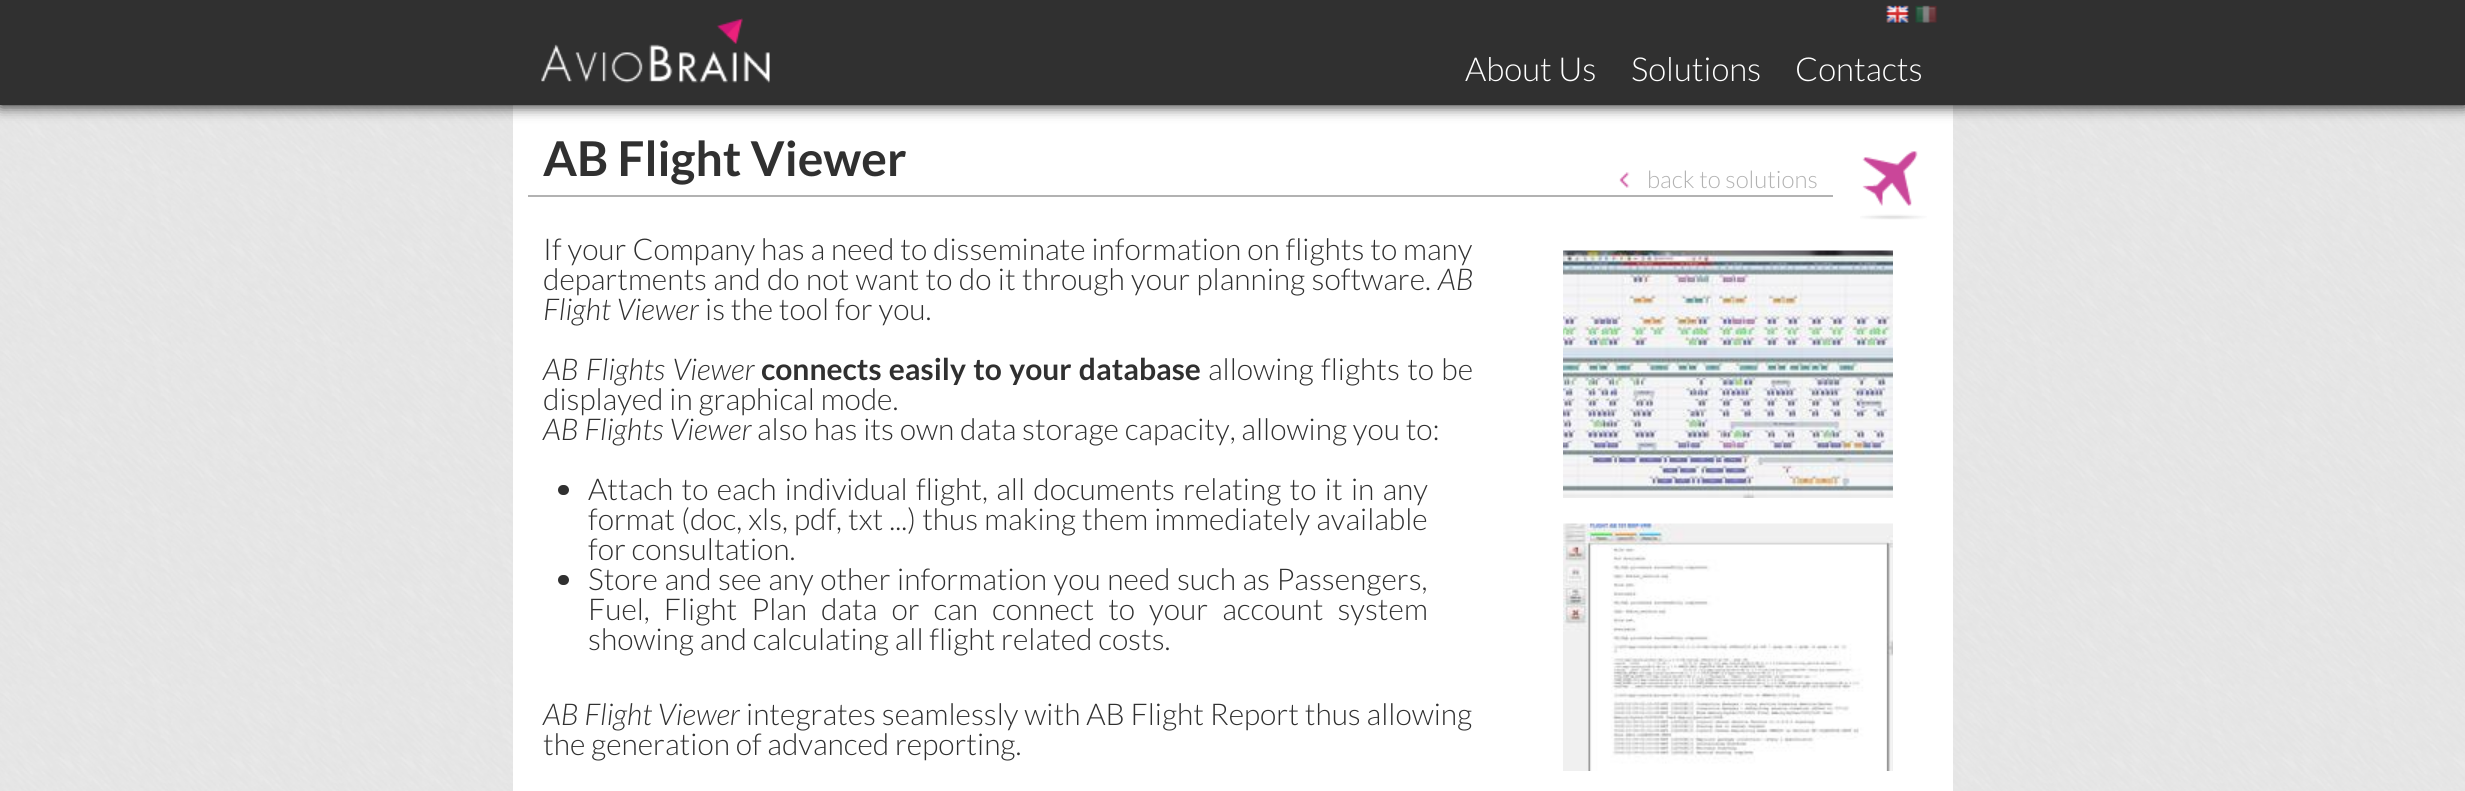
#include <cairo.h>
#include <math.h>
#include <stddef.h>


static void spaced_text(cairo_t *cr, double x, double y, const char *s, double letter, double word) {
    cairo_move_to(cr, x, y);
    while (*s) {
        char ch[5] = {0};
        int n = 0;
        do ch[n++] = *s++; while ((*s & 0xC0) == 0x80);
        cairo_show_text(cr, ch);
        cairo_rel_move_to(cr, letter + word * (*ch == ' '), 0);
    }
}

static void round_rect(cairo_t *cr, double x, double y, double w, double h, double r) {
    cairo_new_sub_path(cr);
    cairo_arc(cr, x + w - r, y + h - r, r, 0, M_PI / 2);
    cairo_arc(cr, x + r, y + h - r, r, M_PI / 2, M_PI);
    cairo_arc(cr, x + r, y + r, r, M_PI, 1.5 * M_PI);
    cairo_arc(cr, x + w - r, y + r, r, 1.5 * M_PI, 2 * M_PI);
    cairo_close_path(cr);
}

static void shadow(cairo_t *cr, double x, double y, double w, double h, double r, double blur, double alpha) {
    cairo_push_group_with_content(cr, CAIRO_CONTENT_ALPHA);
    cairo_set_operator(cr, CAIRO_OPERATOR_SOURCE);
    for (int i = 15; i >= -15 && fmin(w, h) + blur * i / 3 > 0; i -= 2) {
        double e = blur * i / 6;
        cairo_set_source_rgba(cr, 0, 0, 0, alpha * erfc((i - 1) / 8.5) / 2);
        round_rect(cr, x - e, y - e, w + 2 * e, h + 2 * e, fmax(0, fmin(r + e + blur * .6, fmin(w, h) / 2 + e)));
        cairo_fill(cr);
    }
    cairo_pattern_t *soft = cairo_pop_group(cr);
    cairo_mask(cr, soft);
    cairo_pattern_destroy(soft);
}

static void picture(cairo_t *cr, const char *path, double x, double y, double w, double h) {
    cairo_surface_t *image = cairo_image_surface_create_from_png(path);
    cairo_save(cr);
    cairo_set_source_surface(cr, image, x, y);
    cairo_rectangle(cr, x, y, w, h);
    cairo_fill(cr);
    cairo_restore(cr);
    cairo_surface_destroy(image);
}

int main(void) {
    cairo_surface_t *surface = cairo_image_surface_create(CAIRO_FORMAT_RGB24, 2465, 791);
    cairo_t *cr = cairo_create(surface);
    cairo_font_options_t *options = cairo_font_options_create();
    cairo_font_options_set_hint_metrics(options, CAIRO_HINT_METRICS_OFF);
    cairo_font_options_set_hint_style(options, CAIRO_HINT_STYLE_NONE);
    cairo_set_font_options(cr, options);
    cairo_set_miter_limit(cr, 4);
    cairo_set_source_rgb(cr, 1, 1, 1);
    cairo_paint(cr);
    picture(cr, "img1.png", 0, 105, 2465, 686);
    cairo_set_source_rgb(cr, 1, 1, 1);
    cairo_rectangle(cr, 513, 105, 1440, 686);
    cairo_fill(cr);
    cairo_set_source_rgb(cr, 0, 0, 0);
    shadow(cr, 0, 0, 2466, 105, 0, 7.5, 1);
    cairo_set_source_rgb(cr, 0.188, 0.188, 0.188);
    cairo_rectangle(cr, 0, 0, 2465, 105);
    cairo_fill(cr);
    picture(cr, "img2.png", 1886, 5, 23, 19);
    picture(cr, "img3.png", 1915, 5, 23, 18);
    picture(cr, "img4.png", 541, 18, 229, 65);
    cairo_select_font_face(cr, "Lato Light", CAIRO_FONT_SLANT_NORMAL, CAIRO_FONT_WEIGHT_NORMAL);
    cairo_set_font_size(cr, 33);
    cairo_set_source_rgb(cr, 1, 1, 1);
    cairo_move_to(cr, 1465, 81);
    cairo_show_text(cr, "About Us");
    cairo_move_to(cr, 1631, 81);
    cairo_show_text(cr, "Solutions");
    cairo_move_to(cr, 1795, 81);
    cairo_show_text(cr, "Contacts");
    cairo_set_source_rgb(cr, 0.698, 0.698, 0.698);
    cairo_rectangle(cr, 528, 195, 1305, 2);
    cairo_fill(cr);
    cairo_select_font_face(cr, "Lato", CAIRO_FONT_SLANT_NORMAL, CAIRO_FONT_WEIGHT_BOLD);
    cairo_set_font_size(cr, 48);
    cairo_set_source_rgb(cr, 0.188, 0.188, 0.188);
    cairo_move_to(cr, 543, 176);
    cairo_show_text(cr, "AB Flight Viewer");
    picture(cr, "img5.png", 1860, 151, 67, 69);
    picture(cr, "img6.png", 1619, 172, 11, 16);
    cairo_select_font_face(cr, "Lato Light", CAIRO_FONT_SLANT_NORMAL, CAIRO_FONT_WEIGHT_NORMAL);
    cairo_set_font_size(cr, 24);
    cairo_set_source_rgb(cr, 0.698, 0.698, 0.698);
    cairo_move_to(cr, 1647, 188);
    cairo_show_text(cr, "back to solutions");
    cairo_set_font_size(cr, 30);
    cairo_set_source_rgb(cr, 0.188, 0.188, 0.188);
    spaced_text(cr, 543, 260, "If your Company has a need to disseminate information on flights to many", 0, 0.1);
    spaced_text(cr, 543, 290, "departments and do not want to do it through your planning software.", 0, 0.6);
    cairo_select_font_face(cr, "Lato Light", CAIRO_FONT_SLANT_ITALIC, CAIRO_FONT_WEIGHT_NORMAL);
    cairo_move_to(cr, 1438, 290);
    cairo_show_text(cr, "AB");
    cairo_move_to(cr, 543, 320);
    cairo_show_text(cr, "Flight Viewer");
    cairo_select_font_face(cr, "Lato Light", CAIRO_FONT_SLANT_NORMAL, CAIRO_FONT_WEIGHT_NORMAL);
    cairo_move_to(cr, 705, 320);
    cairo_show_text(cr, "is the tool for you.");
    cairo_select_font_face(cr, "Lato Light", CAIRO_FONT_SLANT_ITALIC, CAIRO_FONT_WEIGHT_NORMAL);
    spaced_text(cr, 543, 380, "AB Flights Viewer", 0, 1.5);
    cairo_select_font_face(cr, "Lato", CAIRO_FONT_SLANT_NORMAL, CAIRO_FONT_WEIGHT_BOLD);
    spaced_text(cr, 761, 380, "connects easily to your database", 0, 1.5);
    cairo_select_font_face(cr, "Lato Light", CAIRO_FONT_SLANT_NORMAL, CAIRO_FONT_WEIGHT_NORMAL);
    spaced_text(cr, 1208, 380, "allowing flights to be", 0, 1.5);
    cairo_move_to(cr, 543, 410);
    cairo_show_text(cr, "displayed in graphical mode.");
    cairo_select_font_face(cr, "Lato Light", CAIRO_FONT_SLANT_ITALIC, CAIRO_FONT_WEIGHT_NORMAL);
    cairo_move_to(cr, 543, 440);
    cairo_show_text(cr, "AB Flights Viewer");
    cairo_select_font_face(cr, "Lato Light", CAIRO_FONT_SLANT_NORMAL, CAIRO_FONT_WEIGHT_NORMAL);
    cairo_move_to(cr, 757, 440);
    cairo_show_text(cr, "also has its own data storage capacity, allowing you to:");
    round_rect(cr, 558, 485, 11, 10, 5);
    cairo_fill(cr);
    spaced_text(cr, 588, 500, "Attach to each individual flight, all documents relating to it in any", 0, 2.5);
    spaced_text(cr, 588, 530, "format (doc, xls, pdf, txt ...) thus making them immediately available", 0, 0.25);
    cairo_move_to(cr, 588, 560);
    cairo_show_text(cr, "for consultation.");
    round_rect(cr, 558, 575, 11, 10, 5);
    cairo_fill(cr);
    spaced_text(cr, 588, 590, "Store and see any other information you need such as Passengers,", 0, 0.75);
    spaced_text(cr, 588, 620, "Fuel, Flight Plan data or can connect to your account system", 0, 8.25);
    cairo_move_to(cr, 588, 650);
    cairo_show_text(cr, "showing and calculating all flight related costs.");
    cairo_select_font_face(cr, "Lato Light", CAIRO_FONT_SLANT_ITALIC, CAIRO_FONT_WEIGHT_NORMAL);
    cairo_move_to(cr, 543, 725);
    cairo_show_text(cr, "AB Flight Viewer");
    cairo_select_font_face(cr, "Lato Light", CAIRO_FONT_SLANT_NORMAL, CAIRO_FONT_WEIGHT_NORMAL);
    cairo_move_to(cr, 746, 725);
    cairo_show_text(cr, "integrates seamlessly with AB Flight Report thus allowing");
    cairo_move_to(cr, 543, 755);
    cairo_show_text(cr, "the generation of advanced reporting.");
    picture(cr, "img7.png", 1563, 250, 330, 248);
    picture(cr, "img8.png", 1563, 523, 330, 248);
    cairo_surface_write_to_png(surface, "page.png");
    cairo_font_options_destroy(options);
    cairo_destroy(cr);
    cairo_surface_destroy(surface);
    return 0;
}
